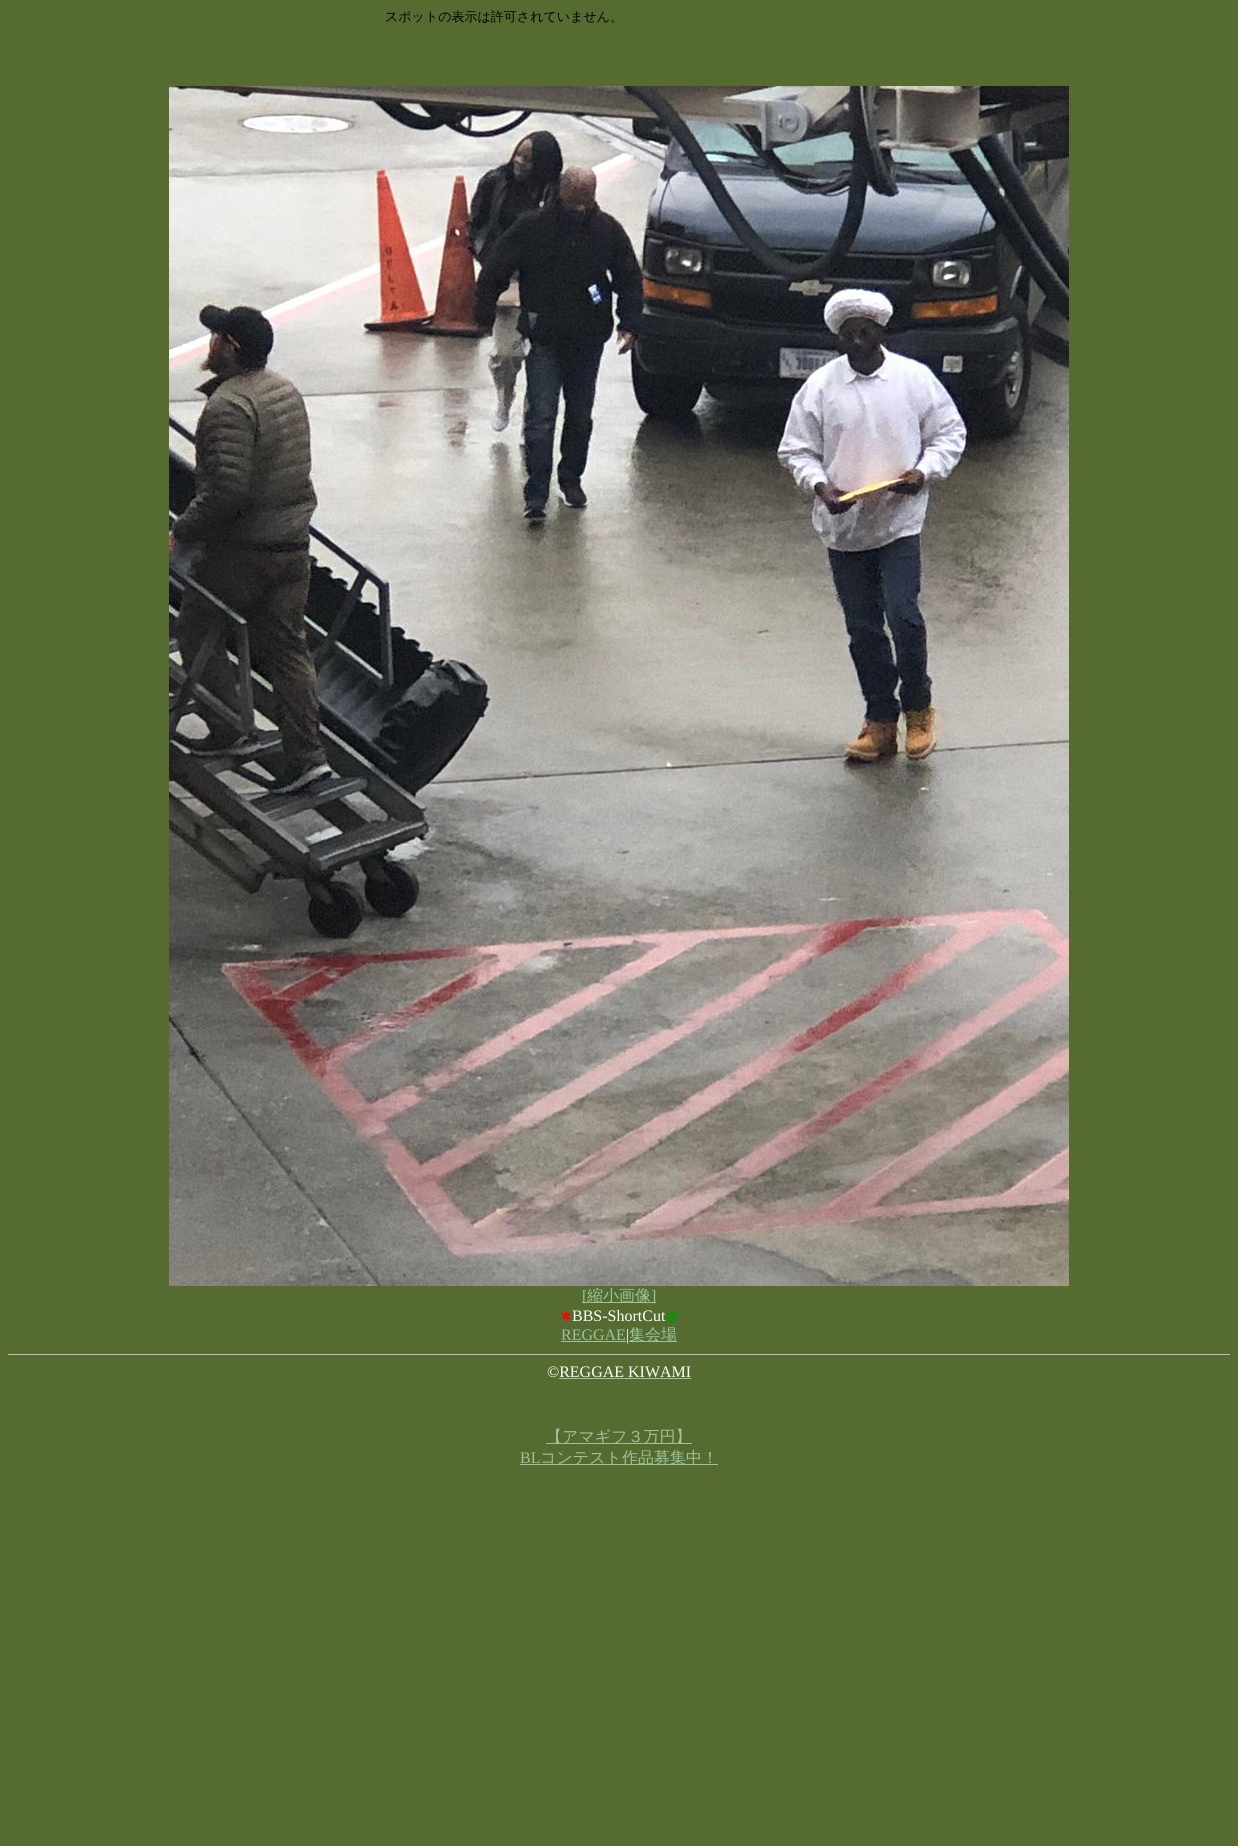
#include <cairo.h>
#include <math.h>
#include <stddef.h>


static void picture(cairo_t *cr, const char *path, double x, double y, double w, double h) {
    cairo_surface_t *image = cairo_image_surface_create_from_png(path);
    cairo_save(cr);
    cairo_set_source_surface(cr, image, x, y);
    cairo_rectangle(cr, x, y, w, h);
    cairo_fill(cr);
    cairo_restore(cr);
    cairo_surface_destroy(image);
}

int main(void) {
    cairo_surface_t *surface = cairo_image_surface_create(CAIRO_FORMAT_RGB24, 1238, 1846);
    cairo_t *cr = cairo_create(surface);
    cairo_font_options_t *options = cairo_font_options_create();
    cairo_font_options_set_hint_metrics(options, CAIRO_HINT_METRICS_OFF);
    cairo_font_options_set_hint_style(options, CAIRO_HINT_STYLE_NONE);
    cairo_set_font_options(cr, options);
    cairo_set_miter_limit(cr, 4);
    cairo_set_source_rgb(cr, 0.333, 0.42, 0.184);
    cairo_paint(cr);
    picture(cr, "img1.png", 386, 10, 229, 13);
    picture(cr, "img2.png", 169, 86, 900, 1200);
    cairo_set_source_rgb(cr, 0.612, 0.769, 0.612);
    cairo_rectangle(cr, 582, 1302, 74, 1);
    cairo_fill(cr);
    cairo_select_font_face(cr, "Liberation Serif", CAIRO_FONT_SLANT_NORMAL, CAIRO_FONT_WEIGHT_NORMAL);
    cairo_set_font_size(cr, 16);
    cairo_move_to(cr, 582, 1301);
    cairo_show_text(cr, "[");
    cairo_select_font_face(cr, "WenQuanYi Zen Hei Medium", CAIRO_FONT_SLANT_NORMAL, CAIRO_FONT_WEIGHT_NORMAL);
    cairo_move_to(cr, 587, 1301);
    cairo_show_text(cr, "縮小画像");
    cairo_select_font_face(cr, "Liberation Serif", CAIRO_FONT_SLANT_NORMAL, CAIRO_FONT_WEIGHT_NORMAL);
    cairo_move_to(cr, 651, 1301);
    cairo_show_text(cr, "]");
    picture(cr, "img3.png", 561, 1311, 10, 11);
    cairo_set_source_rgb(cr, 1, 1, 1);
    cairo_move_to(cr, 572, 1321);
    cairo_show_text(cr, "BBS-ShortCut");
    picture(cr, "img4.png", 666, 1311, 12, 12);
    cairo_set_source_rgb(cr, 0.612, 0.769, 0.612);
    cairo_move_to(cr, 561, 1340);
    cairo_show_text(cr, "REGGAE");
    cairo_rectangle(cr, 561, 1341, 65, 1);
    cairo_fill(cr);
    cairo_set_source_rgb(cr, 1, 1, 1);
    cairo_move_to(cr, 626, 1340);
    cairo_show_text(cr, "|");
    cairo_set_source_rgb(cr, 0.612, 0.769, 0.612);
    cairo_rectangle(cr, 629, 1341, 48, 1);
    cairo_fill(cr);
    cairo_select_font_face(cr, "WenQuanYi Zen Hei Medium", CAIRO_FONT_SLANT_NORMAL, CAIRO_FONT_WEIGHT_NORMAL);
    cairo_move_to(cr, 629, 1340);
    cairo_show_text(cr, "集会場");
    cairo_set_source_rgb(cr, 0.753, 0.753, 0.753);
    cairo_rectangle(cr, 8, 1354, 1222, 1);
    cairo_fill(cr);
    cairo_select_font_face(cr, "Liberation Serif", CAIRO_FONT_SLANT_NORMAL, CAIRO_FONT_WEIGHT_NORMAL);
    cairo_set_source_rgb(cr, 1, 1, 1);
    cairo_move_to(cr, 547, 1377);
    cairo_show_text(cr, "©REGGAE KIWAMI");
    cairo_set_source_rgb(cr, 0.612, 0.769, 0.612);
    cairo_rectangle(cr, 559, 1378, 132, 1);
    cairo_fill(cr);
    cairo_rectangle(cr, 546, 1443, 146, 1);
    cairo_fill(cr);
    cairo_select_font_face(cr, "WenQuanYi Zen Hei Medium", CAIRO_FONT_SLANT_NORMAL, CAIRO_FONT_WEIGHT_NORMAL);
    cairo_move_to(cr, 546, 1442);
    cairo_show_text(cr, "【アマギフ３万円】");
    cairo_select_font_face(cr, "Liberation Serif", CAIRO_FONT_SLANT_NORMAL, CAIRO_FONT_WEIGHT_NORMAL);
    cairo_move_to(cr, 520, 1463);
    cairo_show_text(cr, "BL");
    cairo_rectangle(cr, 520, 1464, 198, 1);
    cairo_fill(cr);
    cairo_select_font_face(cr, "WenQuanYi Zen Hei Medium", CAIRO_FONT_SLANT_NORMAL, CAIRO_FONT_WEIGHT_NORMAL);
    cairo_move_to(cr, 540, 1463);
    cairo_show_text(cr, "コンテスト作品募集中！");
    cairo_surface_write_to_png(surface, "page.png");
    cairo_font_options_destroy(options);
    cairo_destroy(cr);
    cairo_surface_destroy(surface);
    return 0;
}
